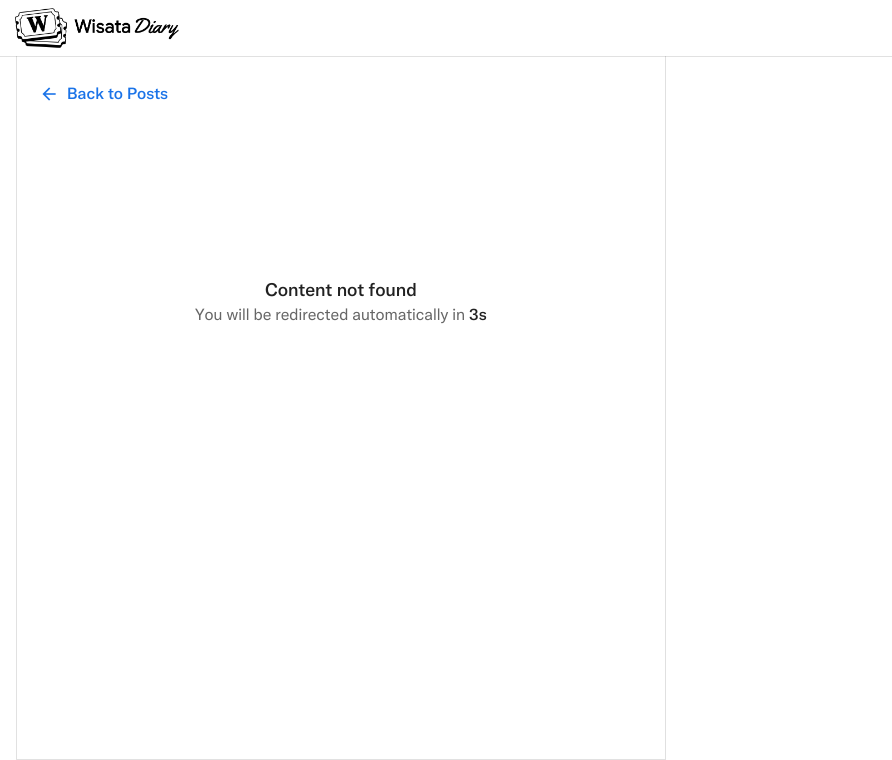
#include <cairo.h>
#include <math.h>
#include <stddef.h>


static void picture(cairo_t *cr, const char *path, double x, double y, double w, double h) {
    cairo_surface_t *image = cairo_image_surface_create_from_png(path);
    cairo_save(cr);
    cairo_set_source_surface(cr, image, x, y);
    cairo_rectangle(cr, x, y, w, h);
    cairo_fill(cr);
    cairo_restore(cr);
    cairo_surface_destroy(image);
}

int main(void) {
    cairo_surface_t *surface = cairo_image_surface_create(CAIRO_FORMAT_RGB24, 892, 760);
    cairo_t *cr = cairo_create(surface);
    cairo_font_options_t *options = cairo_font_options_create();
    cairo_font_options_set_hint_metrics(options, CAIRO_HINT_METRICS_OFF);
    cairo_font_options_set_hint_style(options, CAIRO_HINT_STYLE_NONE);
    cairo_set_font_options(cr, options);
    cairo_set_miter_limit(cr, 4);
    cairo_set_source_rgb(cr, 1, 1, 1);
    cairo_paint(cr);
    cairo_set_source_rgb(cr, 0.878, 0.878, 0.878);
    cairo_new_path(cr);
    cairo_move_to(cr, 666, 56);
    cairo_line_to(cr, 666, 760);
    cairo_line_to(cr, 665, 759);
    cairo_line_to(cr, 665, 56);
    cairo_close_path(cr);
    cairo_fill(cr);
    cairo_set_source_rgba(cr, 0, 0, 0, 0.12);
    cairo_new_path(cr);
    cairo_move_to(cr, 666, 760);
    cairo_line_to(cr, 16, 760);
    cairo_line_to(cr, 17, 759);
    cairo_line_to(cr, 665, 759);
    cairo_close_path(cr);
    cairo_fill(cr);
    cairo_new_path(cr);
    cairo_move_to(cr, 16, 760);
    cairo_line_to(cr, 16, 56);
    cairo_line_to(cr, 17, 56);
    cairo_line_to(cr, 17, 759);
    cairo_close_path(cr);
    cairo_fill(cr);
    cairo_rectangle(cr, 0, 56, 892, 1);
    cairo_fill(cr);
    picture(cr, "img1.png", 15, 8, 164, 40);
    picture(cr, "img2.png", 42, 87, 14, 14);
    cairo_select_font_face(cr, "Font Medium", CAIRO_FONT_SLANT_NORMAL, CAIRO_FONT_WEIGHT_NORMAL);
    cairo_set_font_size(cr, 16);
    cairo_set_source_rgb(cr, 0.102, 0.451, 0.91);
    cairo_move_to(cr, 67, 99);
    cairo_show_text(cr, "Back to Posts");
    cairo_set_font_size(cr, 18);
    cairo_set_source_rgb(cr, 0.129, 0.129, 0.129);
    cairo_move_to(cr, 265, 296);
    cairo_show_text(cr, "Content not found");
    cairo_select_font_face(cr, "Font", CAIRO_FONT_SLANT_NORMAL, CAIRO_FONT_WEIGHT_NORMAL);
    cairo_set_font_size(cr, 16);
    cairo_set_source_rgb(cr, 0.4, 0.4, 0.4);
    cairo_move_to(cr, 195, 320);
    cairo_show_text(cr, "You will be redirected automatically in");
    cairo_select_font_face(cr, "Font Medium", CAIRO_FONT_SLANT_NORMAL, CAIRO_FONT_WEIGHT_NORMAL);
    cairo_set_source_rgb(cr, 0.129, 0.129, 0.129);
    cairo_move_to(cr, 469, 320);
    cairo_show_text(cr, "3s");
    cairo_surface_write_to_png(surface, "page.png");
    cairo_font_options_destroy(options);
    cairo_destroy(cr);
    cairo_surface_destroy(surface);
    return 0;
}
